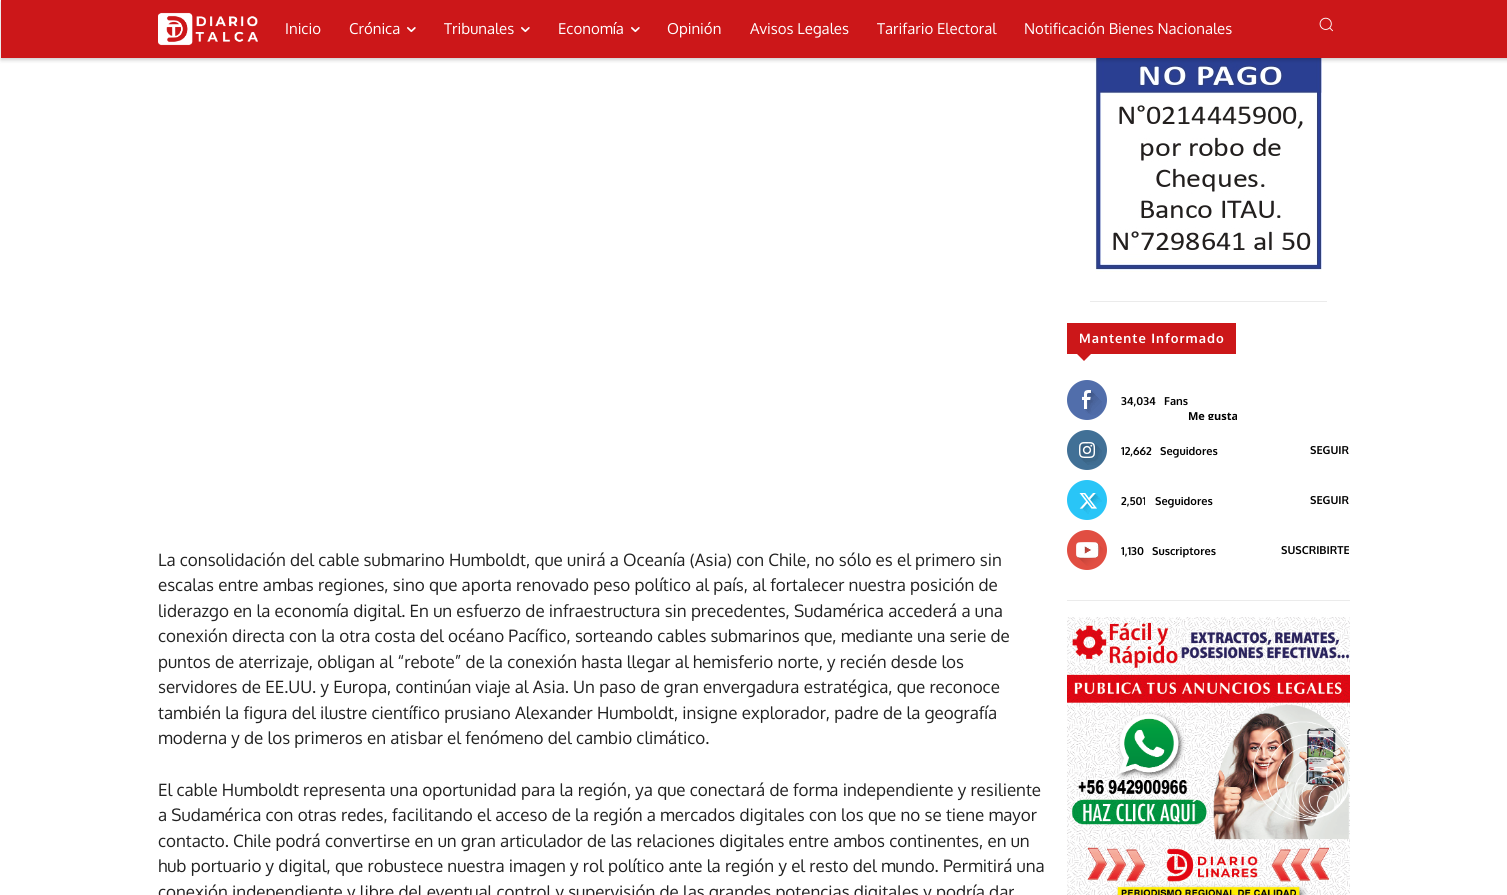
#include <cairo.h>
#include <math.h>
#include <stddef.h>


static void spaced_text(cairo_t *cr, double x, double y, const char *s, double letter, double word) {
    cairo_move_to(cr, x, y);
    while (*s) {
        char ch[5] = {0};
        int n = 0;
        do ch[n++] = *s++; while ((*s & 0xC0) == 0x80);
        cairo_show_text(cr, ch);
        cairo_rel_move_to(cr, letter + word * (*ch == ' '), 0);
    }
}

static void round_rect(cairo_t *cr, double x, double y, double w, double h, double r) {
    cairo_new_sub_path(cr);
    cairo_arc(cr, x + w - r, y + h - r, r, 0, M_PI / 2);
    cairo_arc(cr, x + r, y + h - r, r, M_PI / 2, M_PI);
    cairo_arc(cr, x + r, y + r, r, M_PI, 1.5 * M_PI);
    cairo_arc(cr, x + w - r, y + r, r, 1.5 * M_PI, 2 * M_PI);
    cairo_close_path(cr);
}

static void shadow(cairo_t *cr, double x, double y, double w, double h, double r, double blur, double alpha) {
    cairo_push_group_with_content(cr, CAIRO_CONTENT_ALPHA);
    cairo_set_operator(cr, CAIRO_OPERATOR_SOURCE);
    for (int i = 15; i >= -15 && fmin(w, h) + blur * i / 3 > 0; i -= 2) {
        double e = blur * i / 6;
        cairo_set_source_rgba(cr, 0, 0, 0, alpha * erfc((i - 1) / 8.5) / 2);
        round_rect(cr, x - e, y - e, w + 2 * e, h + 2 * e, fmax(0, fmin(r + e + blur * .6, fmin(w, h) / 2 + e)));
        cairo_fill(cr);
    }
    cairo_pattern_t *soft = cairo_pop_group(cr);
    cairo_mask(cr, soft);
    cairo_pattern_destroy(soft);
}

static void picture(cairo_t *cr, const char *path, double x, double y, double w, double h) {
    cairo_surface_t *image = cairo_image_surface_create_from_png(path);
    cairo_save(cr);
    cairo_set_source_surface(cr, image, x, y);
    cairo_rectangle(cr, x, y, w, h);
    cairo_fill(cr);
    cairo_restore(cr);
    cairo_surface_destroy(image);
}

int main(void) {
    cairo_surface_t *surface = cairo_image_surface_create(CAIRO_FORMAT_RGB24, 1507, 895);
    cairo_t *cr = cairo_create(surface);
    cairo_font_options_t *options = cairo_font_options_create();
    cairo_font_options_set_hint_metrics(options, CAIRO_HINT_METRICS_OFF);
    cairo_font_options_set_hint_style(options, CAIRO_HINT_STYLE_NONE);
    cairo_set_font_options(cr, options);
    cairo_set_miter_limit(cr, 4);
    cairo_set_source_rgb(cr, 1, 1, 1);
    cairo_paint(cr);
    cairo_set_source_rgb(cr, 0.8, 0.09, 0.098);
    cairo_rectangle(cr, 1, 0, 1506, 58);
    cairo_fill(cr);
    picture(cr, "img1.png", 158, 12, 100, 34);
    picture(cr, "img4.png", 1095, 58, 227, 214);
    cairo_save(cr);
    cairo_set_fill_rule(cr, CAIRO_FILL_RULE_EVEN_ODD);
    cairo_new_path(cr);
    cairo_move_to(cr, 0, 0);
    cairo_line_to(cr, 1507, 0);
    cairo_line_to(cr, 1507, 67);
    cairo_line_to(cr, 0, 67);
    cairo_close_path(cr);
    cairo_move_to(cr, 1, 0);
    cairo_line_to(cr, 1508, 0);
    cairo_line_to(cr, 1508, 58);
    cairo_line_to(cr, 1, 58);
    cairo_close_path(cr);
    cairo_clip(cr);
    cairo_set_source_rgb(cr, 0, 0, 0);
    shadow(cr, 1, 2, 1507, 58, 0, 2, 0.2);
    cairo_restore(cr);
    cairo_select_font_face(cr, "Oxygen", CAIRO_FONT_SLANT_NORMAL, CAIRO_FONT_WEIGHT_NORMAL);
    cairo_set_font_size(cr, 15);
    cairo_set_source_rgb(cr, 1, 1, 1);
    cairo_move_to(cr, 285, 34);
    cairo_show_text(cr, "Inicio");
    cairo_move_to(cr, 349, 34);
    cairo_show_text(cr, "Crónica");
    picture(cr, "img2.png", 407, 27, 9, 6);
    cairo_move_to(cr, 444, 34);
    cairo_show_text(cr, "Tribunales");
    picture(cr, "img2.png", 521, 27, 9, 6);
    cairo_move_to(cr, 558, 34);
    cairo_show_text(cr, "Economía");
    picture(cr, "img2.png", 631, 27, 9, 6);
    cairo_move_to(cr, 667, 34);
    cairo_show_text(cr, "Opinión");
    cairo_move_to(cr, 750, 34);
    cairo_show_text(cr, "Avisos Legales");
    cairo_move_to(cr, 877, 34);
    cairo_show_text(cr, "Tarifario Electoral");
    cairo_move_to(cr, 1024, 34);
    cairo_show_text(cr, "Notificación Bienes Nacionales");
    picture(cr, "img3.png", 1319, 17, 14, 15);
    cairo_set_source_rgb(cr, 0.918, 0.918, 0.918);
    cairo_rectangle(cr, 1090, 301, 237, 1);
    cairo_fill(cr);
    cairo_set_source_rgb(cr, 0.8, 0.09, 0.098);
    cairo_rectangle(cr, 1067, 323, 169, 31);
    cairo_fill(cr);
    cairo_select_font_face(cr, "Oxygen", CAIRO_FONT_SLANT_NORMAL, CAIRO_FONT_WEIGHT_BOLD);
    cairo_set_font_size(cr, 13);
    cairo_set_source_rgb(cr, 1, 1, 1);
    spaced_text(cr, 1079, 343, "Mantente Informado", 1, 0);
    cairo_set_source_rgb(cr, 0.8, 0.09, 0.098);
    cairo_new_path(cr);
    cairo_move_to(cr, 1077, 354);
    cairo_line_to(cr, 1091, 354);
    cairo_line_to(cr, 1084, 361);
    cairo_close_path(cr);
    cairo_fill(cr);
    cairo_set_source_rgb(cr, 0.318, 0.431, 0.671);
    cairo_arc(cr, 1087, 400, 20, 0, 2 * M_PI);
    cairo_fill(cr);
    picture(cr, "img5.png", 1082, 390, 20, 25);
    cairo_set_font_size(cr, 11);
    cairo_set_source_rgb(cr, 0, 0, 0);
    cairo_move_to(cr, 1121, 405);
    cairo_show_text(cr, "34,034");
    cairo_move_to(cr, 1164, 405);
    cairo_show_text(cr, "Fans");
    cairo_save(cr);
    cairo_rectangle(cr, 1067, 380, 283, 40);
    cairo_clip(cr);
    cairo_select_font_face(cr, "Open Sans", CAIRO_FONT_SLANT_NORMAL, CAIRO_FONT_WEIGHT_BOLD);
    cairo_move_to(cr, 1188, 420);
    cairo_show_text(cr, "Me gusta");
    cairo_restore(cr);
    cairo_set_source_rgb(cr, 0.255, 0.439, 0.588);
    cairo_new_path(cr);
    cairo_arc(cr, 1087, 450, 20, 0, 2 * M_PI);
    cairo_fill(cr);
    picture(cr, "img6.png", 1079, 442, 23, 23);
    cairo_set_source_rgb(cr, 0, 0, 0);
    cairo_move_to(cr, 1121, 455);
    cairo_show_text(cr, "12,662");
    cairo_move_to(cr, 1160, 455);
    cairo_show_text(cr, "Seguidores");
    cairo_move_to(cr, 1310, 454);
    cairo_show_text(cr, "SEGUIR");
    cairo_set_source_rgb(cr, 0.161, 0.773, 0.965);
    cairo_new_path(cr);
    cairo_arc(cr, 1087, 500, 20, 0, 2 * M_PI);
    cairo_fill(cr);
    picture(cr, "img7.png", 1079, 493, 23, 21);
    cairo_set_source_rgb(cr, 0, 0, 0);
    cairo_move_to(cr, 1121, 505);
    cairo_show_text(cr, "2,501");
    cairo_move_to(cr, 1155, 505);
    cairo_show_text(cr, "Seguidores");
    cairo_move_to(cr, 1310, 504);
    cairo_show_text(cr, "SEGUIR");
    cairo_set_source_rgb(cr, 0.882, 0.306, 0.259);
    cairo_new_path(cr);
    cairo_arc(cr, 1087, 550, 20, 0, 2 * M_PI);
    cairo_fill(cr);
    picture(cr, "img8.png", 1076, 542, 27, 24);
    cairo_set_source_rgb(cr, 0, 0, 0);
    cairo_move_to(cr, 1121, 555);
    cairo_show_text(cr, "1,130");
    cairo_move_to(cr, 1152, 555);
    cairo_show_text(cr, "Suscriptores");
    cairo_move_to(cr, 1281, 554);
    cairo_show_text(cr, "SUSCRIBIRTE");
    cairo_set_source_rgb(cr, 0.918, 0.918, 0.918);
    cairo_rectangle(cr, 1067, 600, 283, 1);
    cairo_fill(cr);
    picture(cr, "img9.png", 1067, 617, 283, 278);
    cairo_select_font_face(cr, "Oxygen", CAIRO_FONT_SLANT_NORMAL, CAIRO_FONT_WEIGHT_NORMAL);
    cairo_set_font_size(cr, 17);
    cairo_set_source_rgb(cr, 0.133, 0.133, 0.133);
    cairo_move_to(cr, 158, 566);
    cairo_show_text(cr, "La consolidación del cable submarino Humboldt, que unirá a Oceanía (Asia) con Chile, no sólo es el primero sin");
    cairo_move_to(cr, 158, 591);
    cairo_show_text(cr, "escalas entre ambas regiones, sino que aporta renovado peso político al país, al fortalecer nuestra posición de");
    cairo_move_to(cr, 158, 617);
    cairo_show_text(cr, "liderazgo en la economía digital. En un esfuerzo de infraestructura sin precedentes, Sudamérica accederá a una");
    cairo_move_to(cr, 158, 642);
    cairo_show_text(cr, "conexión directa con la otra costa del océano Pacífico, sorteando cables submarinos que, mediante una serie de");
    cairo_move_to(cr, 158, 668);
    cairo_show_text(cr, "puntos de aterrizaje, obligan al “rebote” de la conexión hasta llegar al hemisferio norte, y recién desde los");
    cairo_move_to(cr, 158, 693);
    cairo_show_text(cr, "servidores de EE.UU. y Europa, continúan viaje al Asia. Un paso de gran envergadura estratégica, que reconoce");
    cairo_move_to(cr, 158, 719);
    cairo_show_text(cr, "también la figura del ilustre científico prusiano Alexander Humboldt, insigne explorador, padre de la geografía");
    cairo_move_to(cr, 158, 744);
    cairo_show_text(cr, "moderna y de los primeros en atisbar el fenómeno del cambio climático.");
    cairo_move_to(cr, 158, 796);
    cairo_show_text(cr, "El cable Humboldt representa una oportunidad para la región, ya que conectará de forma independiente y resiliente");
    cairo_move_to(cr, 158, 821);
    cairo_show_text(cr, "a Sudamérica con otras redes, facilitando el acceso de la región a mercados digitales con los que no se tiene mayor");
    cairo_move_to(cr, 158, 847);
    cairo_show_text(cr, "contacto. Chile podrá convertirse en un gran articulador de las relaciones digitales entre ambos continentes, en un");
    cairo_move_to(cr, 158, 872);
    cairo_show_text(cr, "hub portuario y digital, que robustece nuestra imagen y rol político ante la región y el resto del mundo. Permitirá una");
    cairo_move_to(cr, 158, 898);
    cairo_show_text(cr, "conexión independiente y libre del eventual control y supervisión de las grandes potencias digitales y podría dar");
    cairo_surface_write_to_png(surface, "page.png");
    cairo_font_options_destroy(options);
    cairo_destroy(cr);
    cairo_surface_destroy(surface);
    return 0;
}
